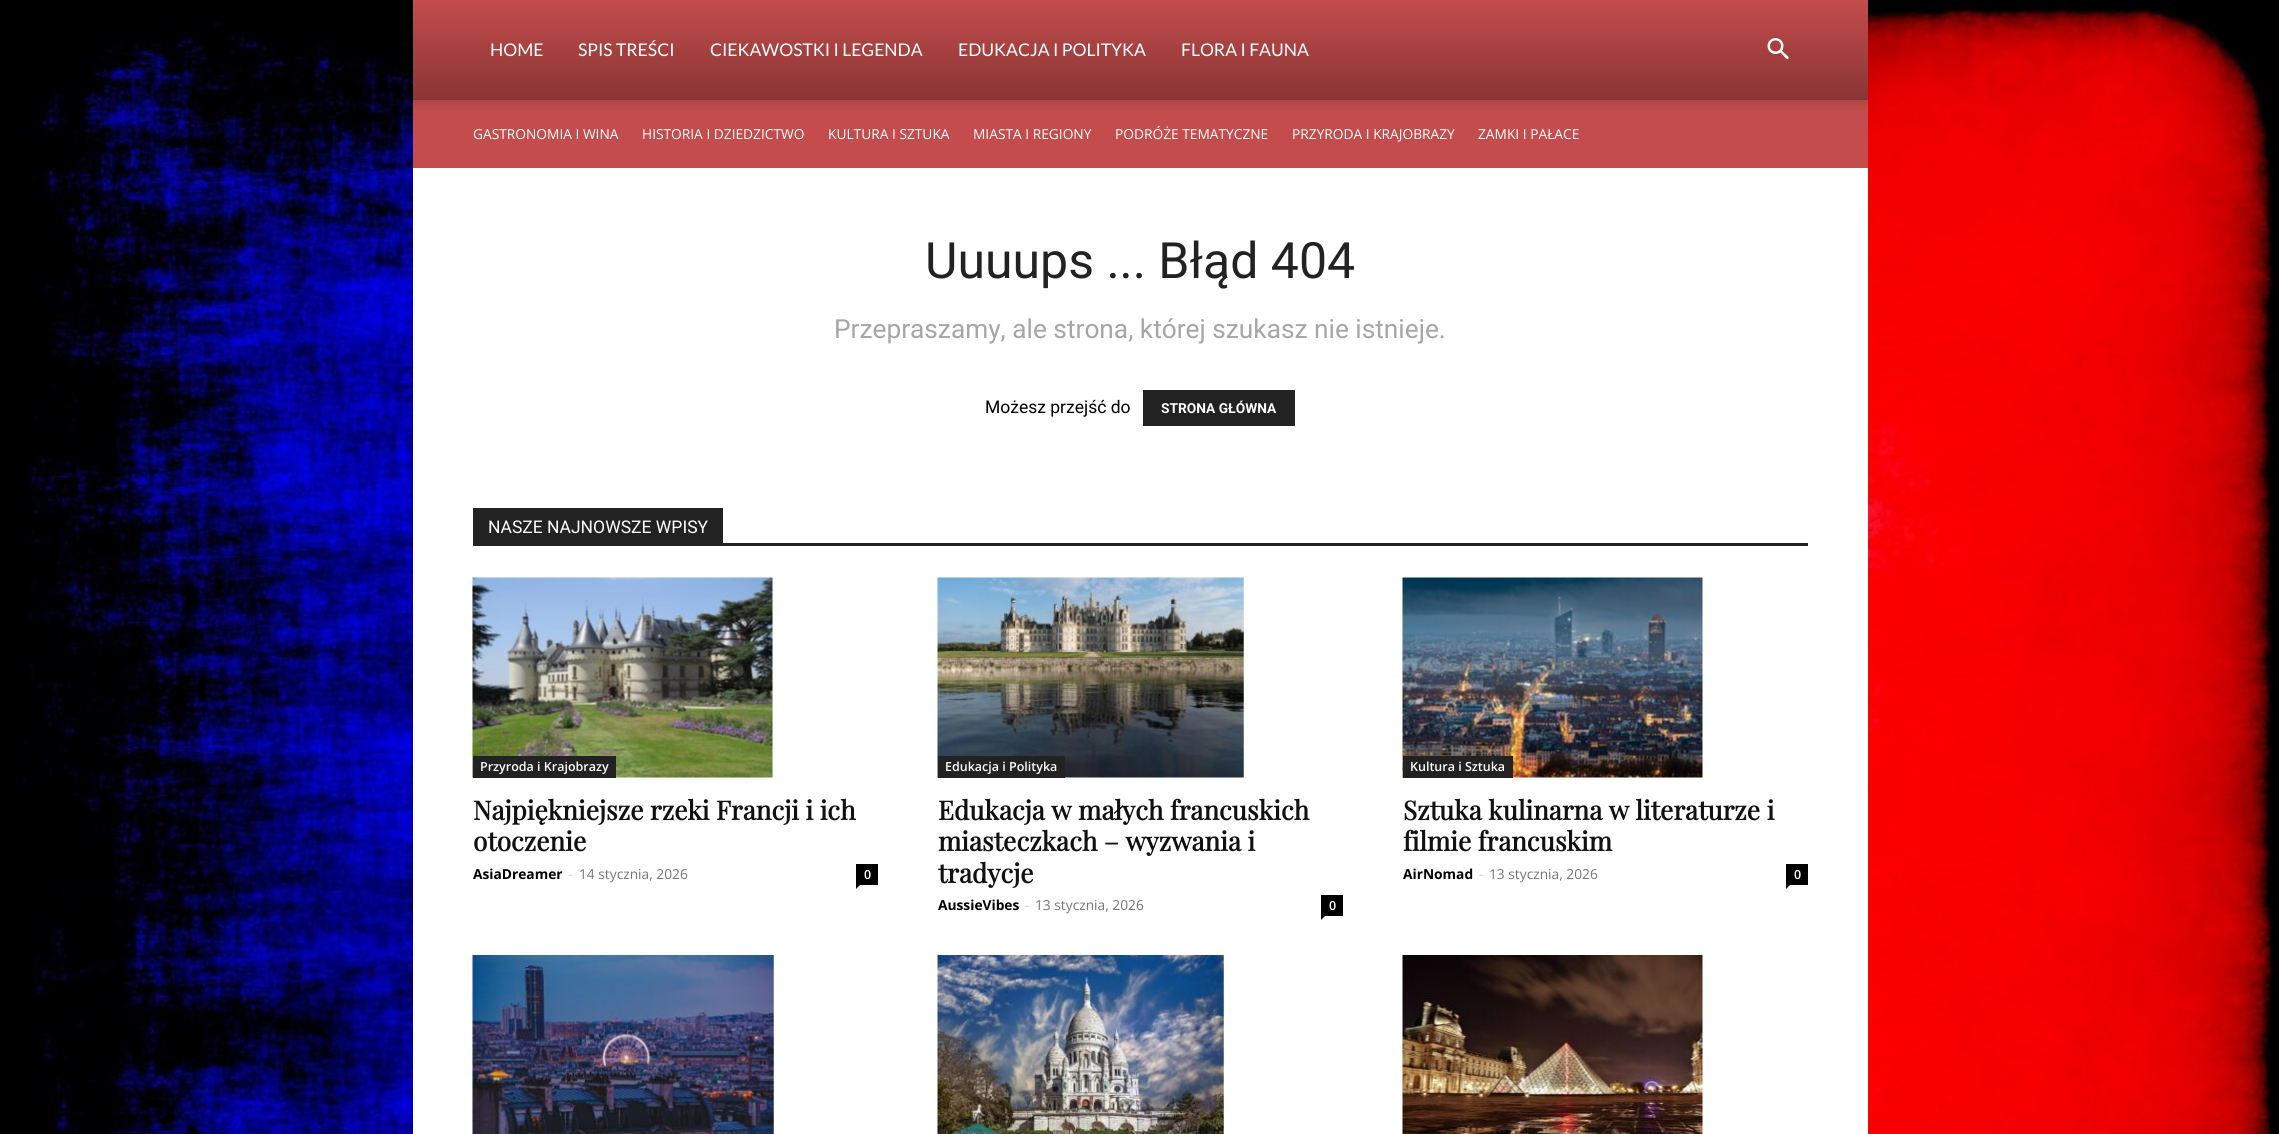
#include <cairo.h>
#include <math.h>
#include <stddef.h>


static void picture(cairo_t *cr, const char *path, double x, double y, double w, double h) {
    cairo_surface_t *image = cairo_image_surface_create_from_png(path);
    cairo_save(cr);
    cairo_set_source_surface(cr, image, x, y);
    cairo_rectangle(cr, x, y, w, h);
    cairo_fill(cr);
    cairo_restore(cr);
    cairo_surface_destroy(image);
}

int main(void) {
    cairo_surface_t *surface = cairo_image_surface_create(CAIRO_FORMAT_RGB24, 2279, 1134);
    cairo_t *cr = cairo_create(surface);
    cairo_font_options_t *options = cairo_font_options_create();
    cairo_font_options_set_hint_metrics(options, CAIRO_HINT_METRICS_OFF);
    cairo_font_options_set_hint_style(options, CAIRO_HINT_STYLE_NONE);
    cairo_set_font_options(cr, options);
    cairo_set_miter_limit(cr, 4);
    cairo_pattern_t *gradient;
    cairo_set_source_rgb(cr, 1, 1, 1);
    cairo_paint(cr);
    picture(cr, "img1.png", 0, 0, 2279, 1134);
    gradient = cairo_pattern_create_linear(1140, 0, 1140, 100);
    cairo_pattern_add_color_stop_rgba(gradient, 0, 0.769, 0.298, 0.298, 1);
    cairo_pattern_add_color_stop_rgba(gradient, 1, 0.537, 0.208, 0.208, 1);
    cairo_set_source(cr, gradient);
    cairo_pattern_destroy(gradient);
    cairo_rectangle(cr, 413, 0, 1455, 100);
    cairo_fill(cr);
    cairo_select_font_face(cr, "Lato", CAIRO_FONT_SLANT_NORMAL, CAIRO_FONT_WEIGHT_NORMAL);
    cairo_set_font_size(cr, 17.5);
    cairo_set_source_rgb(cr, 1, 1, 1);
    cairo_move_to(cr, 490, 56);
    cairo_show_text(cr, "HOME");
    cairo_move_to(cr, 578, 56);
    cairo_show_text(cr, "SPIS TREŚCI");
    cairo_move_to(cr, 710, 56);
    cairo_show_text(cr, "CIEKAWOSTKI I LEGENDA");
    cairo_move_to(cr, 958, 56);
    cairo_show_text(cr, "EDUKACJA I POLITYKA");
    cairo_move_to(cr, 1181, 56);
    cairo_show_text(cr, "FLORA I FAUNA");
    picture(cr, "img2.png", 1767, 38, 22, 22);
    cairo_set_source_rgb(cr, 0.769, 0.298, 0.298);
    cairo_rectangle(cr, 413, 100, 1455, 68);
    cairo_fill(cr);
    picture(cr, "img3.png", 413, 100, 1455, 11);
    cairo_select_font_face(cr, "Open Sans", CAIRO_FONT_SLANT_NORMAL, CAIRO_FONT_WEIGHT_NORMAL);
    cairo_set_font_size(cr, 13.75);
    cairo_set_source_rgb(cr, 1, 1, 1);
    cairo_move_to(cr, 473, 139);
    cairo_show_text(cr, "GASTRONOMIA I WINA");
    cairo_move_to(cr, 642, 139);
    cairo_show_text(cr, "HISTORIA I DZIEDZICTWO");
    cairo_move_to(cr, 828, 139);
    cairo_show_text(cr, "KULTURA I SZTUKA");
    cairo_move_to(cr, 973, 139);
    cairo_show_text(cr, "MIASTA I REGIONY");
    cairo_move_to(cr, 1115, 139);
    cairo_show_text(cr, "PODRÓŻE TEMATYCZNE");
    cairo_move_to(cr, 1292, 139);
    cairo_show_text(cr, "PRZYRODA I KRAJOBRAZY");
    cairo_move_to(cr, 1478, 139);
    cairo_show_text(cr, "ZAMKI I PAŁACE");
    cairo_rectangle(cr, 413, 168, 1455, 966);
    cairo_fill(cr);
    cairo_select_font_face(cr, "Roboto", CAIRO_FONT_SLANT_NORMAL, CAIRO_FONT_WEIGHT_NORMAL);
    cairo_set_font_size(cr, 50);
    cairo_set_source_rgb(cr, 0.133, 0.133, 0.133);
    cairo_move_to(cr, 925, 278);
    cairo_show_text(cr, "Uuuups ... Błąd 404");
    cairo_set_font_size(cr, 26.25);
    cairo_set_source_rgb(cr, 0.651, 0.651, 0.651);
    cairo_move_to(cr, 834, 338);
    cairo_show_text(cr, "Przepraszamy, ale strona, której szukasz nie istnieje.");
    cairo_set_font_size(cr, 17.5);
    cairo_set_source_rgb(cr, 0, 0, 0);
    cairo_move_to(cr, 985, 413);
    cairo_show_text(cr, "Możesz przejść do");
    cairo_set_source_rgb(cr, 0.133, 0.133, 0.133);
    cairo_rectangle(cr, 1143, 390, 152, 36);
    cairo_fill(cr);
    cairo_select_font_face(cr, "Roboto", CAIRO_FONT_SLANT_NORMAL, CAIRO_FONT_WEIGHT_BOLD);
    cairo_set_font_size(cr, 13.75);
    cairo_set_source_rgb(cr, 1, 1, 1);
    cairo_move_to(cr, 1161, 413);
    cairo_show_text(cr, "STRONA GŁÓWNA");
    cairo_set_source_rgb(cr, 0.133, 0.133, 0.133);
    cairo_rectangle(cr, 473, 543, 1335, 3);
    cairo_fill(cr);
    cairo_rectangle(cr, 473, 508, 250, 35);
    cairo_fill(cr);
    cairo_select_font_face(cr, "Roboto", CAIRO_FONT_SLANT_NORMAL, CAIRO_FONT_WEIGHT_NORMAL);
    cairo_set_font_size(cr, 17.5);
    cairo_set_source_rgb(cr, 1, 1, 1);
    cairo_move_to(cr, 488, 533);
    cairo_show_text(cr, "NASZE NAJNOWSZE WPISY");
    picture(cr, "img4.png", 472, 577, 301, 201);
    cairo_set_source_rgb(cr, 0.133, 0.133, 0.133);
    cairo_rectangle(cr, 473, 756, 143, 22);
    cairo_fill(cr);
    cairo_select_font_face(cr, "Open Sans SemiBold", CAIRO_FONT_SLANT_NORMAL, CAIRO_FONT_WEIGHT_NORMAL);
    cairo_set_font_size(cr, 12.5);
    cairo_set_source_rgb(cr, 1, 1, 1);
    cairo_move_to(cr, 480, 771);
    cairo_show_text(cr, "Przyroda i Krajobrazy");
    cairo_select_font_face(cr, "Playfair Display", CAIRO_FONT_SLANT_NORMAL, CAIRO_FONT_WEIGHT_BOLD);
    cairo_set_font_size(cr, 26.25);
    cairo_set_source_rgb(cr, 0.067, 0.067, 0.067);
    cairo_move_to(cr, 473, 820);
    cairo_show_text(cr, "Najpiękniejsze rzeki Francji i ich");
    cairo_move_to(cr, 473, 851);
    cairo_show_text(cr, "otoczenie");
    cairo_select_font_face(cr, "Open Sans", CAIRO_FONT_SLANT_NORMAL, CAIRO_FONT_WEIGHT_BOLD);
    cairo_set_font_size(cr, 13.75);
    cairo_set_source_rgb(cr, 0, 0, 0);
    cairo_move_to(cr, 473, 879);
    cairo_show_text(cr, "AsiaDreamer");
    cairo_select_font_face(cr, "Open Sans", CAIRO_FONT_SLANT_NORMAL, CAIRO_FONT_WEIGHT_NORMAL);
    cairo_set_source_rgb(cr, 0.8, 0.8, 0.8);
    cairo_move_to(cr, 568, 879);
    cairo_show_text(cr, "-");
    cairo_set_source_rgb(cr, 0.463, 0.463, 0.463);
    cairo_move_to(cr, 579, 879);
    cairo_show_text(cr, "14 stycznia, 2026");
    cairo_set_source_rgb(cr, 0, 0, 0);
    cairo_rectangle(cr, 856, 864, 22, 21);
    cairo_fill(cr);
    cairo_select_font_face(cr, "Open Sans SemiBold", CAIRO_FONT_SLANT_NORMAL, CAIRO_FONT_WEIGHT_NORMAL);
    cairo_set_font_size(cr, 12.5);
    cairo_set_source_rgb(cr, 1, 1, 1);
    cairo_move_to(cr, 864, 879);
    cairo_show_text(cr, "0");
    cairo_set_source_rgb(cr, 0, 0, 0);
    cairo_new_path(cr);
    cairo_move_to(cr, 856, 885);
    cairo_line_to(cr, 860, 885);
    cairo_line_to(cr, 856, 889);
    cairo_close_path(cr);
    cairo_fill(cr);
    picture(cr, "img5.png", 937, 577, 307, 201);
    cairo_set_source_rgb(cr, 0.133, 0.133, 0.133);
    cairo_rectangle(cr, 938, 756, 127, 22);
    cairo_fill(cr);
    cairo_set_source_rgb(cr, 1, 1, 1);
    cairo_move_to(cr, 945, 771);
    cairo_show_text(cr, "Edukacja i Polityka");
    cairo_select_font_face(cr, "Playfair Display", CAIRO_FONT_SLANT_NORMAL, CAIRO_FONT_WEIGHT_BOLD);
    cairo_set_font_size(cr, 26.25);
    cairo_set_source_rgb(cr, 0.067, 0.067, 0.067);
    cairo_move_to(cr, 938, 820);
    cairo_show_text(cr, "Edukacja w małych francuskich");
    cairo_move_to(cr, 938, 851);
    cairo_show_text(cr, "miasteczkach – wyzwania i");
    cairo_move_to(cr, 938, 883);
    cairo_show_text(cr, "tradycje");
    cairo_select_font_face(cr, "Open Sans", CAIRO_FONT_SLANT_NORMAL, CAIRO_FONT_WEIGHT_BOLD);
    cairo_set_font_size(cr, 13.75);
    cairo_set_source_rgb(cr, 0, 0, 0);
    cairo_move_to(cr, 938, 910);
    cairo_show_text(cr, "AussieVibes");
    cairo_select_font_face(cr, "Open Sans", CAIRO_FONT_SLANT_NORMAL, CAIRO_FONT_WEIGHT_NORMAL);
    cairo_set_source_rgb(cr, 0.8, 0.8, 0.8);
    cairo_move_to(cr, 1025, 910);
    cairo_show_text(cr, "-");
    cairo_set_source_rgb(cr, 0.463, 0.463, 0.463);
    cairo_move_to(cr, 1035, 910);
    cairo_show_text(cr, "13 stycznia, 2026");
    cairo_set_source_rgb(cr, 0, 0, 0);
    cairo_rectangle(cr, 1321, 895, 22, 21);
    cairo_fill(cr);
    cairo_select_font_face(cr, "Open Sans SemiBold", CAIRO_FONT_SLANT_NORMAL, CAIRO_FONT_WEIGHT_NORMAL);
    cairo_set_font_size(cr, 12.5);
    cairo_set_source_rgb(cr, 1, 1, 1);
    cairo_move_to(cr, 1329, 910);
    cairo_show_text(cr, "0");
    cairo_set_source_rgb(cr, 0, 0, 0);
    cairo_new_path(cr);
    cairo_move_to(cr, 1321, 916);
    cairo_line_to(cr, 1325, 916);
    cairo_line_to(cr, 1321, 920);
    cairo_close_path(cr);
    cairo_fill(cr);
    picture(cr, "img6.png", 1402, 577, 301, 201);
    cairo_set_source_rgb(cr, 0.133, 0.133, 0.133);
    cairo_rectangle(cr, 1403, 756, 110, 22);
    cairo_fill(cr);
    cairo_set_source_rgb(cr, 1, 1, 1);
    cairo_move_to(cr, 1410, 771);
    cairo_show_text(cr, "Kultura i Sztuka");
    cairo_select_font_face(cr, "Playfair Display", CAIRO_FONT_SLANT_NORMAL, CAIRO_FONT_WEIGHT_BOLD);
    cairo_set_font_size(cr, 26.25);
    cairo_set_source_rgb(cr, 0.067, 0.067, 0.067);
    cairo_move_to(cr, 1403, 820);
    cairo_show_text(cr, "Sztuka kulinarna w literaturze i");
    cairo_move_to(cr, 1403, 851);
    cairo_show_text(cr, "filmie francuskim");
    cairo_select_font_face(cr, "Open Sans", CAIRO_FONT_SLANT_NORMAL, CAIRO_FONT_WEIGHT_BOLD);
    cairo_set_font_size(cr, 13.75);
    cairo_set_source_rgb(cr, 0, 0, 0);
    cairo_move_to(cr, 1403, 879);
    cairo_show_text(cr, "AirNomad");
    cairo_select_font_face(cr, "Open Sans", CAIRO_FONT_SLANT_NORMAL, CAIRO_FONT_WEIGHT_NORMAL);
    cairo_set_source_rgb(cr, 0.8, 0.8, 0.8);
    cairo_move_to(cr, 1479, 879);
    cairo_show_text(cr, "-");
    cairo_set_source_rgb(cr, 0.463, 0.463, 0.463);
    cairo_move_to(cr, 1489, 879);
    cairo_show_text(cr, "13 stycznia, 2026");
    cairo_set_source_rgb(cr, 0, 0, 0);
    cairo_rectangle(cr, 1786, 864, 22, 21);
    cairo_fill(cr);
    cairo_select_font_face(cr, "Open Sans SemiBold", CAIRO_FONT_SLANT_NORMAL, CAIRO_FONT_WEIGHT_NORMAL);
    cairo_set_font_size(cr, 12.5);
    cairo_set_source_rgb(cr, 1, 1, 1);
    cairo_move_to(cr, 1794, 879);
    cairo_show_text(cr, "0");
    cairo_set_source_rgb(cr, 0, 0, 0);
    cairo_new_path(cr);
    cairo_move_to(cr, 1786, 885);
    cairo_line_to(cr, 1790, 885);
    cairo_line_to(cr, 1786, 889);
    cairo_close_path(cr);
    cairo_fill(cr);
    picture(cr, "img7.png", 472, 955, 302, 179);
    picture(cr, "img8.png", 937, 955, 287, 179);
    picture(cr, "img9.png", 1402, 955, 301, 179);
    cairo_surface_write_to_png(surface, "page.png");
    cairo_font_options_destroy(options);
    cairo_destroy(cr);
    cairo_surface_destroy(surface);
    return 0;
}
